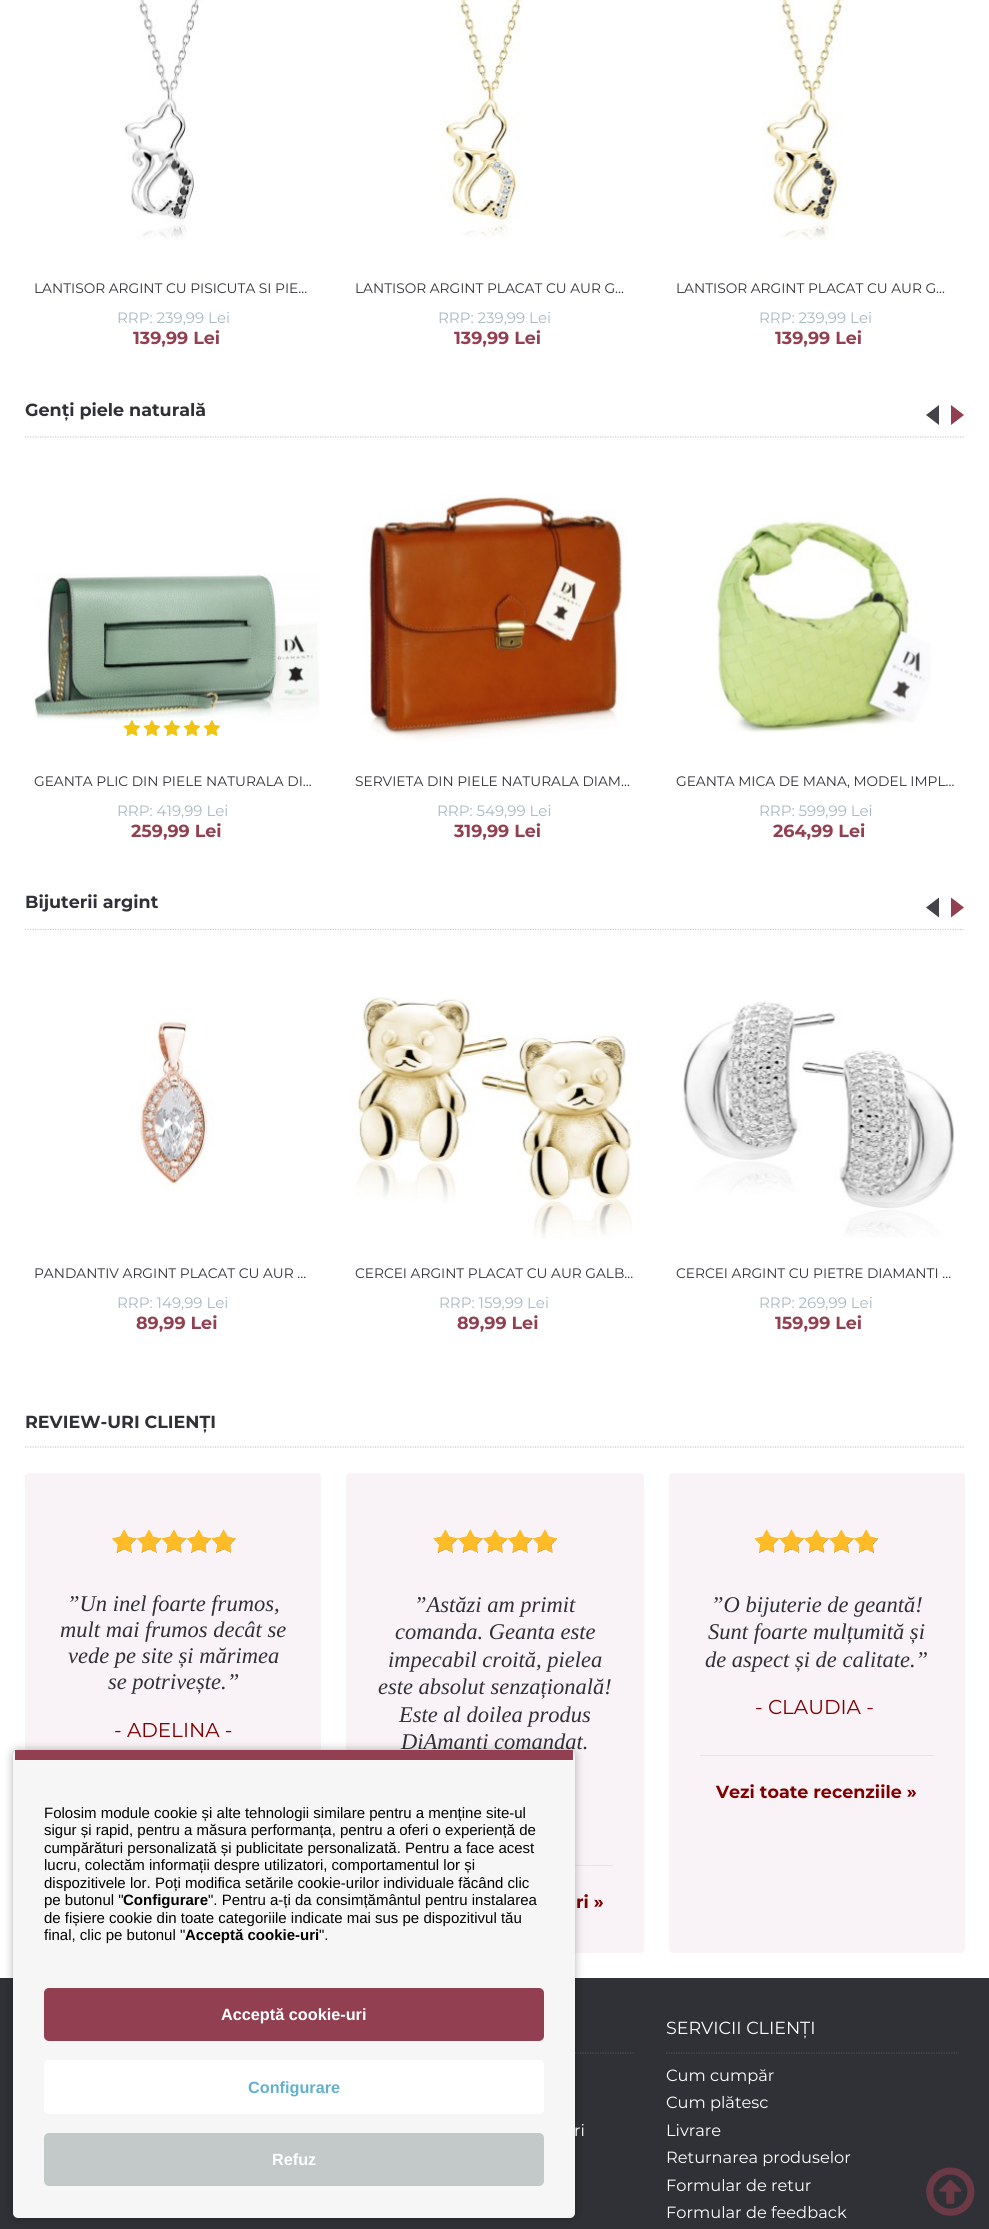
#include <cairo.h>
#include <math.h>
#include <stddef.h>


static void round_rect(cairo_t *cr, double x, double y, double w, double h, double r) {
    cairo_new_sub_path(cr);
    cairo_arc(cr, x + w - r, y + h - r, r, 0, M_PI / 2);
    cairo_arc(cr, x + r, y + h - r, r, M_PI / 2, M_PI);
    cairo_arc(cr, x + r, y + r, r, M_PI, 1.5 * M_PI);
    cairo_arc(cr, x + w - r, y + r, r, 1.5 * M_PI, 2 * M_PI);
    cairo_close_path(cr);
}

static void shadow(cairo_t *cr, double x, double y, double w, double h, double r, double blur, double alpha) {
    cairo_push_group_with_content(cr, CAIRO_CONTENT_ALPHA);
    cairo_set_operator(cr, CAIRO_OPERATOR_SOURCE);
    for (int i = 15; i >= -15 && fmin(w, h) + blur * i / 3 > 0; i -= 2) {
        double e = blur * i / 6;
        cairo_set_source_rgba(cr, 0, 0, 0, alpha * erfc((i - 1) / 8.5) / 2);
        round_rect(cr, x - e, y - e, w + 2 * e, h + 2 * e, fmax(0, fmin(r + e + blur * .6, fmin(w, h) / 2 + e)));
        cairo_fill(cr);
    }
    cairo_pattern_t *soft = cairo_pop_group(cr);
    cairo_mask(cr, soft);
    cairo_pattern_destroy(soft);
}

static void picture(cairo_t *cr, const char *path, double x, double y, double w, double h) {
    cairo_surface_t *image = cairo_image_surface_create_from_png(path);
    cairo_save(cr);
    cairo_set_source_surface(cr, image, x, y);
    cairo_rectangle(cr, x, y, w, h);
    cairo_fill(cr);
    cairo_restore(cr);
    cairo_surface_destroy(image);
}

int main(void) {
    cairo_surface_t *surface = cairo_image_surface_create(CAIRO_FORMAT_RGB24, 989, 2229);
    cairo_t *cr = cairo_create(surface);
    cairo_font_options_t *options = cairo_font_options_create();
    cairo_font_options_set_hint_metrics(options, CAIRO_HINT_METRICS_OFF);
    cairo_font_options_set_hint_style(options, CAIRO_HINT_STYLE_NONE);
    cairo_set_font_options(cr, options);
    cairo_set_miter_limit(cr, 4);
    cairo_set_source_rgb(cr, 1, 1, 1);
    cairo_paint(cr);
    picture(cr, "img1.png", 121, 0, 80, 240);
    cairo_select_font_face(cr, "Montserrat Thin", CAIRO_FONT_SLANT_NORMAL, CAIRO_FONT_WEIGHT_NORMAL);
    cairo_set_font_size(cr, 13.75);
    cairo_set_source_rgb(cr, 0.188, 0.192, 0.212);
    cairo_move_to(cr, 34, 293);
    cairo_show_text(cr, "LANTISOR ARGINT CU PISICUTA SI PIE…");
    cairo_set_font_size(cr, 15);
    cairo_set_source_rgb(cr, 0.663, 0.722, 0.753);
    cairo_move_to(cr, 117, 323);
    cairo_show_text(cr, "RRP: 239,99 Lei");
    cairo_select_font_face(cr, "Montserrat", CAIRO_FONT_SLANT_NORMAL, CAIRO_FONT_WEIGHT_BOLD);
    cairo_set_font_size(cr, 17.5);
    cairo_set_source_rgb(cr, 0.573, 0.251, 0.318);
    cairo_move_to(cr, 133, 344);
    cairo_show_text(cr, "139,99 Lei");
    picture(cr, "img2.png", 441, 0, 82, 238);
    cairo_select_font_face(cr, "Montserrat Thin", CAIRO_FONT_SLANT_NORMAL, CAIRO_FONT_WEIGHT_NORMAL);
    cairo_set_font_size(cr, 13.75);
    cairo_set_source_rgb(cr, 0.188, 0.192, 0.212);
    cairo_move_to(cr, 355, 293);
    cairo_show_text(cr, "LANTISOR ARGINT PLACAT CU AUR G…");
    cairo_set_font_size(cr, 15);
    cairo_set_source_rgb(cr, 0.663, 0.722, 0.753);
    cairo_move_to(cr, 438, 323);
    cairo_show_text(cr, "RRP: 239,99 Lei");
    cairo_select_font_face(cr, "Montserrat", CAIRO_FONT_SLANT_NORMAL, CAIRO_FONT_WEIGHT_BOLD);
    cairo_set_font_size(cr, 17.5);
    cairo_set_source_rgb(cr, 0.573, 0.251, 0.318);
    cairo_move_to(cr, 454, 344);
    cairo_show_text(cr, "139,99 Lei");
    picture(cr, "img3.png", 762, 0, 82, 240);
    cairo_select_font_face(cr, "Montserrat Thin", CAIRO_FONT_SLANT_NORMAL, CAIRO_FONT_WEIGHT_NORMAL);
    cairo_set_font_size(cr, 13.75);
    cairo_set_source_rgb(cr, 0.188, 0.192, 0.212);
    cairo_move_to(cr, 676, 293);
    cairo_show_text(cr, "LANTISOR ARGINT PLACAT CU AUR G…");
    cairo_set_font_size(cr, 15);
    cairo_set_source_rgb(cr, 0.663, 0.722, 0.753);
    cairo_move_to(cr, 759, 323);
    cairo_show_text(cr, "RRP: 239,99 Lei");
    cairo_select_font_face(cr, "Montserrat", CAIRO_FONT_SLANT_NORMAL, CAIRO_FONT_WEIGHT_BOLD);
    cairo_set_font_size(cr, 17.5);
    cairo_set_source_rgb(cr, 0.573, 0.251, 0.318);
    cairo_move_to(cr, 775, 344);
    cairo_show_text(cr, "139,99 Lei");
    cairo_new_path(cr);
    cairo_move_to(cr, 25, 437);
    cairo_line_to(cr, 965, 437);
    cairo_set_source_rgb(cr, 0.8, 0.8, 0.8);
    cairo_set_line_width(cr, 1.2);
    cairo_set_dash(cr, (double[]){1.25, 1.25}, 2, 0);
    cairo_stroke(cr);
    cairo_set_source_rgb(cr, 0.188, 0.192, 0.212);
    cairo_move_to(cr, 25, 416);
    cairo_show_text(cr, "Genți piele naturală");
    cairo_set_source_rgb(cr, 0.267, 0.263, 0.286);
    cairo_new_path(cr);
    cairo_move_to(cr, 939, 425);
    cairo_line_to(cr, 939, 405);
    cairo_line_to(cr, 926, 415);
    cairo_close_path(cr);
    cairo_fill(cr);
    cairo_set_source_rgb(cr, 0.573, 0.251, 0.318);
    cairo_new_path(cr);
    cairo_move_to(cr, 951, 405);
    cairo_line_to(cr, 951, 425);
    cairo_line_to(cr, 964, 415);
    cairo_close_path(cr);
    cairo_fill(cr);
    picture(cr, "img4.png", 34, 573, 286, 148);
    picture(cr, "img5.png", 123, 720, 17, 16);
    picture(cr, "img6.png", 123, 720, 17, 16);
    picture(cr, "img7.png", 143, 720, 17, 16);
    picture(cr, "img8.png", 143, 720, 17, 16);
    picture(cr, "img9.png", 163, 720, 17, 16);
    picture(cr, "img10.png", 163, 720, 17, 16);
    picture(cr, "img11.png", 183, 720, 17, 16);
    picture(cr, "img12.png", 183, 720, 17, 16);
    picture(cr, "img13.png", 203, 720, 17, 16);
    picture(cr, "img14.png", 203, 720, 17, 16);
    cairo_select_font_face(cr, "Montserrat Thin", CAIRO_FONT_SLANT_NORMAL, CAIRO_FONT_WEIGHT_NORMAL);
    cairo_set_font_size(cr, 13.75);
    cairo_set_source_rgb(cr, 0.188, 0.192, 0.212);
    cairo_move_to(cr, 34, 786);
    cairo_show_text(cr, "GEANTA PLIC DIN PIELE NATURALA DI…");
    cairo_set_font_size(cr, 15);
    cairo_set_source_rgb(cr, 0.663, 0.722, 0.753);
    cairo_move_to(cr, 117, 816);
    cairo_show_text(cr, "RRP: 419,99 Lei");
    cairo_select_font_face(cr, "Montserrat", CAIRO_FONT_SLANT_NORMAL, CAIRO_FONT_WEIGHT_BOLD);
    cairo_set_font_size(cr, 17.5);
    cairo_set_source_rgb(cr, 0.573, 0.251, 0.318);
    cairo_move_to(cr, 131, 837);
    cairo_show_text(cr, "259,99 Lei");
    picture(cr, "img15.png", 362, 494, 266, 248);
    cairo_select_font_face(cr, "Montserrat Thin", CAIRO_FONT_SLANT_NORMAL, CAIRO_FONT_WEIGHT_NORMAL);
    cairo_set_font_size(cr, 13.75);
    cairo_set_source_rgb(cr, 0.188, 0.192, 0.212);
    cairo_move_to(cr, 355, 786);
    cairo_show_text(cr, "SERVIETA DIN PIELE NATURALA DIAM…");
    cairo_set_font_size(cr, 15);
    cairo_set_source_rgb(cr, 0.663, 0.722, 0.753);
    cairo_move_to(cr, 437, 816);
    cairo_show_text(cr, "RRP: 549,99 Lei");
    cairo_select_font_face(cr, "Montserrat", CAIRO_FONT_SLANT_NORMAL, CAIRO_FONT_WEIGHT_BOLD);
    cairo_set_font_size(cr, 17.5);
    cairo_set_source_rgb(cr, 0.573, 0.251, 0.318);
    cairo_move_to(cr, 454, 837);
    cairo_show_text(cr, "319,99 Lei");
    picture(cr, "img16.png", 714, 517, 217, 216);
    cairo_select_font_face(cr, "Montserrat Thin", CAIRO_FONT_SLANT_NORMAL, CAIRO_FONT_WEIGHT_NORMAL);
    cairo_set_font_size(cr, 13.75);
    cairo_set_source_rgb(cr, 0.188, 0.192, 0.212);
    cairo_move_to(cr, 676, 786);
    cairo_show_text(cr, "GEANTA MICA DE MANA, MODEL IMPL…");
    cairo_set_font_size(cr, 15);
    cairo_set_source_rgb(cr, 0.663, 0.722, 0.753);
    cairo_move_to(cr, 759, 816);
    cairo_show_text(cr, "RRP: 599,99 Lei");
    cairo_select_font_face(cr, "Montserrat", CAIRO_FONT_SLANT_NORMAL, CAIRO_FONT_WEIGHT_BOLD);
    cairo_set_font_size(cr, 17.5);
    cairo_set_source_rgb(cr, 0.573, 0.251, 0.318);
    cairo_move_to(cr, 773, 837);
    cairo_show_text(cr, "264,99 Lei");
    cairo_new_path(cr);
    cairo_move_to(cr, 25, 929.5);
    cairo_line_to(cr, 965, 929.5);
    cairo_set_source_rgb(cr, 0.8, 0.8, 0.8);
    cairo_stroke(cr);
    cairo_set_source_rgb(cr, 0.188, 0.192, 0.212);
    cairo_move_to(cr, 25, 908);
    cairo_show_text(cr, "Bijuterii argint");
    cairo_set_source_rgb(cr, 0.267, 0.263, 0.286);
    cairo_new_path(cr);
    cairo_move_to(cr, 939, 917.5);
    cairo_line_to(cr, 939, 897.5);
    cairo_line_to(cr, 926, 907.5);
    cairo_close_path(cr);
    cairo_fill(cr);
    cairo_set_source_rgb(cr, 0.573, 0.251, 0.318);
    cairo_new_path(cr);
    cairo_move_to(cr, 951, 897.5);
    cairo_line_to(cr, 951, 917.5);
    cairo_line_to(cr, 964, 907.5);
    cairo_close_path(cr);
    cairo_fill(cr);
    picture(cr, "img17.png", 136, 1018, 78, 174);
    cairo_select_font_face(cr, "Montserrat Thin", CAIRO_FONT_SLANT_NORMAL, CAIRO_FONT_WEIGHT_NORMAL);
    cairo_set_font_size(cr, 13.75);
    cairo_set_source_rgb(cr, 0.188, 0.192, 0.212);
    cairo_move_to(cr, 34, 1278);
    cairo_show_text(cr, "PANDANTIV ARGINT PLACAT CU AUR …");
    cairo_set_font_size(cr, 15);
    cairo_set_source_rgb(cr, 0.663, 0.722, 0.753);
    cairo_move_to(cr, 117, 1308);
    cairo_show_text(cr, "RRP: 149,99 Lei");
    cairo_select_font_face(cr, "Montserrat", CAIRO_FONT_SLANT_NORMAL, CAIRO_FONT_WEIGHT_BOLD);
    cairo_set_font_size(cr, 17.5);
    cairo_set_source_rgb(cr, 0.573, 0.251, 0.318);
    cairo_move_to(cr, 136, 1329);
    cairo_show_text(cr, "89,99 Lei");
    picture(cr, "img18.png", 350, 996, 282, 243);
    cairo_select_font_face(cr, "Montserrat Thin", CAIRO_FONT_SLANT_NORMAL, CAIRO_FONT_WEIGHT_NORMAL);
    cairo_set_font_size(cr, 13.75);
    cairo_set_source_rgb(cr, 0.188, 0.192, 0.212);
    cairo_move_to(cr, 355, 1278);
    cairo_show_text(cr, "CERCEI ARGINT PLACAT CU AUR GALB…");
    cairo_set_font_size(cr, 15);
    cairo_set_source_rgb(cr, 0.663, 0.722, 0.753);
    cairo_move_to(cr, 439, 1308);
    cairo_show_text(cr, "RRP: 159,99 Lei");
    cairo_select_font_face(cr, "Montserrat", CAIRO_FONT_SLANT_NORMAL, CAIRO_FONT_WEIGHT_BOLD);
    cairo_set_font_size(cr, 17.5);
    cairo_set_source_rgb(cr, 0.573, 0.251, 0.318);
    cairo_move_to(cr, 457, 1329);
    cairo_show_text(cr, "89,99 Lei");
    picture(cr, "img19.png", 683, 1001, 272, 237);
    cairo_select_font_face(cr, "Montserrat Thin", CAIRO_FONT_SLANT_NORMAL, CAIRO_FONT_WEIGHT_NORMAL);
    cairo_set_font_size(cr, 13.75);
    cairo_set_source_rgb(cr, 0.188, 0.192, 0.212);
    cairo_move_to(cr, 676, 1278);
    cairo_show_text(cr, "CERCEI ARGINT CU PIETRE DIAMANTI …");
    cairo_set_font_size(cr, 15);
    cairo_set_source_rgb(cr, 0.663, 0.722, 0.753);
    cairo_move_to(cr, 759, 1308);
    cairo_show_text(cr, "RRP: 269,99 Lei");
    cairo_select_font_face(cr, "Montserrat", CAIRO_FONT_SLANT_NORMAL, CAIRO_FONT_WEIGHT_BOLD);
    cairo_set_font_size(cr, 17.5);
    cairo_set_source_rgb(cr, 0.573, 0.251, 0.318);
    cairo_move_to(cr, 775, 1329);
    cairo_show_text(cr, "159,99 Lei");
    cairo_new_path(cr);
    cairo_move_to(cr, 25, 1447);
    cairo_line_to(cr, 965, 1447);
    cairo_set_source_rgb(cr, 0.8, 0.8, 0.8);
    cairo_stroke(cr);
    cairo_set_source_rgb(cr, 0.188, 0.192, 0.212);
    cairo_move_to(cr, 25, 1428);
    cairo_show_text(cr, "REVIEW-URI CLIENȚI");
    cairo_set_source_rgb(cr, 0.973, 0.949, 0.965);
    round_rect(cr, 25, 1473, 296, 480, 4);
    cairo_fill(cr);
    picture(cr, "img20.png", 111, 1529, 126, 25);
    cairo_select_font_face(cr, "Liberation Serif", CAIRO_FONT_SLANT_ITALIC, CAIRO_FONT_WEIGHT_NORMAL);
    cairo_set_font_size(cr, 22.5);
    cairo_set_source_rgb(cr, 0.188, 0.192, 0.212);
    cairo_move_to(cr, 67, 1611);
    cairo_show_text(cr, "”Un inel foarte frumos,");
    cairo_move_to(cr, 60, 1637);
    cairo_show_text(cr, "mult mai frumos decât se");
    cairo_move_to(cr, 68, 1663);
    cairo_show_text(cr, "vede pe site și mărimea");
    cairo_move_to(cr, 108, 1689);
    cairo_show_text(cr, "se potrivește.”");
    cairo_select_font_face(cr, "Montserrat Thin", CAIRO_FONT_SLANT_NORMAL, CAIRO_FONT_WEIGHT_NORMAL);
    cairo_set_font_size(cr, 20);
    cairo_set_source_rgb(cr, 0.502, 0, 0);
    cairo_move_to(cr, 114, 1737);
    cairo_show_text(cr, "- ADELINA -");
    cairo_set_source_rgb(cr, 0.973, 0.949, 0.965);
    round_rect(cr, 346, 1473, 298, 480, 4);
    cairo_fill(cr);
    picture(cr, "img21.png", 432, 1529, 126, 25);
    cairo_select_font_face(cr, "Liberation Serif", CAIRO_FONT_SLANT_ITALIC, CAIRO_FONT_WEIGHT_NORMAL);
    cairo_set_font_size(cr, 22.5);
    cairo_set_source_rgb(cr, 0.188, 0.192, 0.212);
    cairo_move_to(cr, 414, 1612);
    cairo_show_text(cr, "”Astăzi am primit");
    cairo_move_to(cr, 395, 1639);
    cairo_show_text(cr, "comanda. Geanta este");
    cairo_move_to(cr, 388, 1667);
    cairo_show_text(cr, "impecabil croită, pielea");
    cairo_move_to(cr, 378, 1694);
    cairo_show_text(cr, "este absolut senzațională!");
    cairo_move_to(cr, 399, 1722);
    cairo_show_text(cr, "Este al doilea produs");
    cairo_move_to(cr, 401, 1749);
    cairo_show_text(cr, "DiAmanti comandat.");
    cairo_set_source_rgb(cr, 0.894, 0.894, 0.894);
    cairo_rectangle(cr, 575, 1865, 38, 1);
    cairo_fill(cr);
    cairo_select_font_face(cr, "Montserrat", CAIRO_FONT_SLANT_NORMAL, CAIRO_FONT_WEIGHT_BOLD);
    cairo_set_font_size(cr, 17.5);
    cairo_set_source_rgb(cr, 0.502, 0, 0);
    cairo_move_to(cr, 576, 1908);
    cairo_show_text(cr, "ri »");
    cairo_set_source_rgb(cr, 0.973, 0.949, 0.965);
    round_rect(cr, 669, 1473, 296, 480, 4);
    cairo_fill(cr);
    picture(cr, "img22.png", 754, 1529, 125, 25);
    cairo_select_font_face(cr, "Liberation Serif", CAIRO_FONT_SLANT_ITALIC, CAIRO_FONT_WEIGHT_NORMAL);
    cairo_set_font_size(cr, 22.5);
    cairo_set_source_rgb(cr, 0.188, 0.192, 0.212);
    cairo_move_to(cr, 711, 1612);
    cairo_show_text(cr, "”O bijuterie de geantă!");
    cairo_move_to(cr, 708, 1639);
    cairo_show_text(cr, "Sunt foarte mulțumită și");
    cairo_move_to(cr, 705, 1667);
    cairo_show_text(cr, "de aspect și de calitate.”");
    cairo_select_font_face(cr, "Montserrat Thin", CAIRO_FONT_SLANT_NORMAL, CAIRO_FONT_WEIGHT_NORMAL);
    cairo_set_font_size(cr, 20);
    cairo_set_source_rgb(cr, 0.502, 0, 0);
    cairo_move_to(cr, 755, 1714);
    cairo_show_text(cr, "- CLAUDIA -");
    cairo_set_source_rgb(cr, 0.894, 0.894, 0.894);
    cairo_rectangle(cr, 700, 1755, 234, 1);
    cairo_fill(cr);
    cairo_select_font_face(cr, "Montserrat", CAIRO_FONT_SLANT_NORMAL, CAIRO_FONT_WEIGHT_BOLD);
    cairo_set_font_size(cr, 17.5);
    cairo_set_source_rgb(cr, 0.502, 0, 0);
    cairo_move_to(cr, 716, 1798);
    cairo_show_text(cr, "Vezi toate recenziile »");
    cairo_set_source_rgb(cr, 0.188, 0.192, 0.212);
    cairo_rectangle(cr, 0, 1978, 989, 251);
    cairo_fill(cr);
    cairo_new_path(cr);
    cairo_move_to(cr, 342.5, 2053);
    cairo_line_to(cr, 635, 2053);
    cairo_set_source_rgb(cr, 0.314, 0.314, 0.314);
    cairo_stroke(cr);
    cairo_set_source_rgb(cr, 0, 0, 0);
    shadow(cr, 13, 1750, 562, 468, 5, 4.5, 0.3);
    cairo_set_source_rgb(cr, 0.961, 0.961, 0.961);
    round_rect(cr, 13, 1750, 562, 468, 5);
    cairo_fill(cr);
    cairo_set_source_rgb(cr, 0.573, 0.251, 0.318);
    cairo_rectangle(cr, 15, 1750, 558, 10);
    cairo_fill(cr);
    cairo_select_font_face(cr, "Liberation Sans", CAIRO_FONT_SLANT_NORMAL, CAIRO_FONT_WEIGHT_NORMAL);
    cairo_set_font_size(cr, 15);
    cairo_set_source_rgb(cr, 0, 0, 0);
    cairo_move_to(cr, 44, 1818);
    cairo_show_text(cr, "Folosim module cookie și alte tehnologii similare pentru a menține site-ul");
    cairo_move_to(cr, 44, 1835);
    cairo_show_text(cr, "sigur și rapid, pentru a măsura performanța, pentru a oferi o experiență de");
    cairo_move_to(cr, 44, 1853);
    cairo_show_text(cr, "cumpărături personalizată și publicitate personalizată. Pentru a face acest");
    cairo_move_to(cr, 44, 1870);
    cairo_show_text(cr, "lucru, colectăm informații despre utilizatori, comportamentul lor și");
    cairo_move_to(cr, 44, 1888);
    cairo_show_text(cr, "dispozitivele lor. Poți modifica setările cookie-urilor individuale făcând clic");
    cairo_move_to(cr, 44, 1905);
    cairo_show_text(cr, "pe butonul \"");
    cairo_select_font_face(cr, "Liberation Sans", CAIRO_FONT_SLANT_NORMAL, CAIRO_FONT_WEIGHT_BOLD);
    cairo_move_to(cr, 123, 1905);
    cairo_show_text(cr, "Configurare");
    cairo_select_font_face(cr, "Liberation Sans", CAIRO_FONT_SLANT_NORMAL, CAIRO_FONT_WEIGHT_NORMAL);
    cairo_move_to(cr, 208, 1905);
    cairo_show_text(cr, "\". Pentru a-ți da consimțământul pentru instalarea");
    cairo_move_to(cr, 44, 1923);
    cairo_show_text(cr, "de fișiere cookie din toate categoriile indicate mai sus pe dispozitivul tău");
    cairo_move_to(cr, 44, 1940);
    cairo_show_text(cr, "final, clic pe butonul \"");
    cairo_select_font_face(cr, "Liberation Sans", CAIRO_FONT_SLANT_NORMAL, CAIRO_FONT_WEIGHT_BOLD);
    cairo_move_to(cr, 185, 1940);
    cairo_show_text(cr, "Acceptă cookie-uri");
    cairo_select_font_face(cr, "Liberation Sans", CAIRO_FONT_SLANT_NORMAL, CAIRO_FONT_WEIGHT_NORMAL);
    cairo_move_to(cr, 319, 1940);
    cairo_show_text(cr, "\".");
    cairo_set_source_rgb(cr, 0.573, 0.251, 0.318);
    round_rect(cr, 44, 1988, 500, 53, 5);
    cairo_fill(cr);
    cairo_select_font_face(cr, "Liberation Sans", CAIRO_FONT_SLANT_NORMAL, CAIRO_FONT_WEIGHT_BOLD);
    cairo_set_font_size(cr, 16.25);
    cairo_set_source_rgb(cr, 1, 1, 1);
    cairo_move_to(cr, 221, 2020);
    cairo_show_text(cr, "Acceptă cookie-uri");
    round_rect(cr, 44, 2060, 500, 54, 5);
    cairo_fill(cr);
    cairo_set_source_rgb(cr, 0.388, 0.69, 0.8);
    cairo_move_to(cr, 248, 2093);
    cairo_show_text(cr, "Configurare");
    cairo_set_source_rgb(cr, 0.765, 0.784, 0.788);
    round_rect(cr, 44, 2133, 500, 53, 5);
    cairo_fill(cr);
    cairo_set_source_rgb(cr, 1, 1, 1);
    cairo_move_to(cr, 272, 2165);
    cairo_show_text(cr, "Refuz");
    cairo_select_font_face(cr, "Montserrat Thin", CAIRO_FONT_SLANT_NORMAL, CAIRO_FONT_WEIGHT_NORMAL);
    cairo_move_to(cr, 574, 2136);
    cairo_show_text(cr, "ri");
    cairo_new_path(cr);
    cairo_move_to(cr, 666, 2053);
    cairo_line_to(cr, 959, 2053);
    cairo_set_source_rgb(cr, 0.314, 0.314, 0.314);
    cairo_stroke(cr);
    cairo_set_font_size(cr, 17.5);
    cairo_set_source_rgb(cr, 1, 1, 1);
    cairo_move_to(cr, 666, 2034);
    cairo_show_text(cr, "SERVICII CLIENȚI");
    cairo_set_font_size(cr, 16.25);
    cairo_move_to(cr, 666, 2081);
    cairo_show_text(cr, "Cum cumpăr");
    cairo_move_to(cr, 666, 2108);
    cairo_show_text(cr, "Cum plătesc");
    cairo_move_to(cr, 666, 2136);
    cairo_show_text(cr, "Livrare");
    cairo_move_to(cr, 666, 2163);
    cairo_show_text(cr, "Returnarea produselor");
    cairo_move_to(cr, 666, 2191);
    cairo_show_text(cr, "Formular de retur");
    cairo_move_to(cr, 666, 2218);
    cairo_show_text(cr, "Formular de feedback");
    picture(cr, "img23.png", 926, 2167, 49, 49);
    cairo_surface_write_to_png(surface, "page.png");
    cairo_font_options_destroy(options);
    cairo_destroy(cr);
    cairo_surface_destroy(surface);
    return 0;
}
